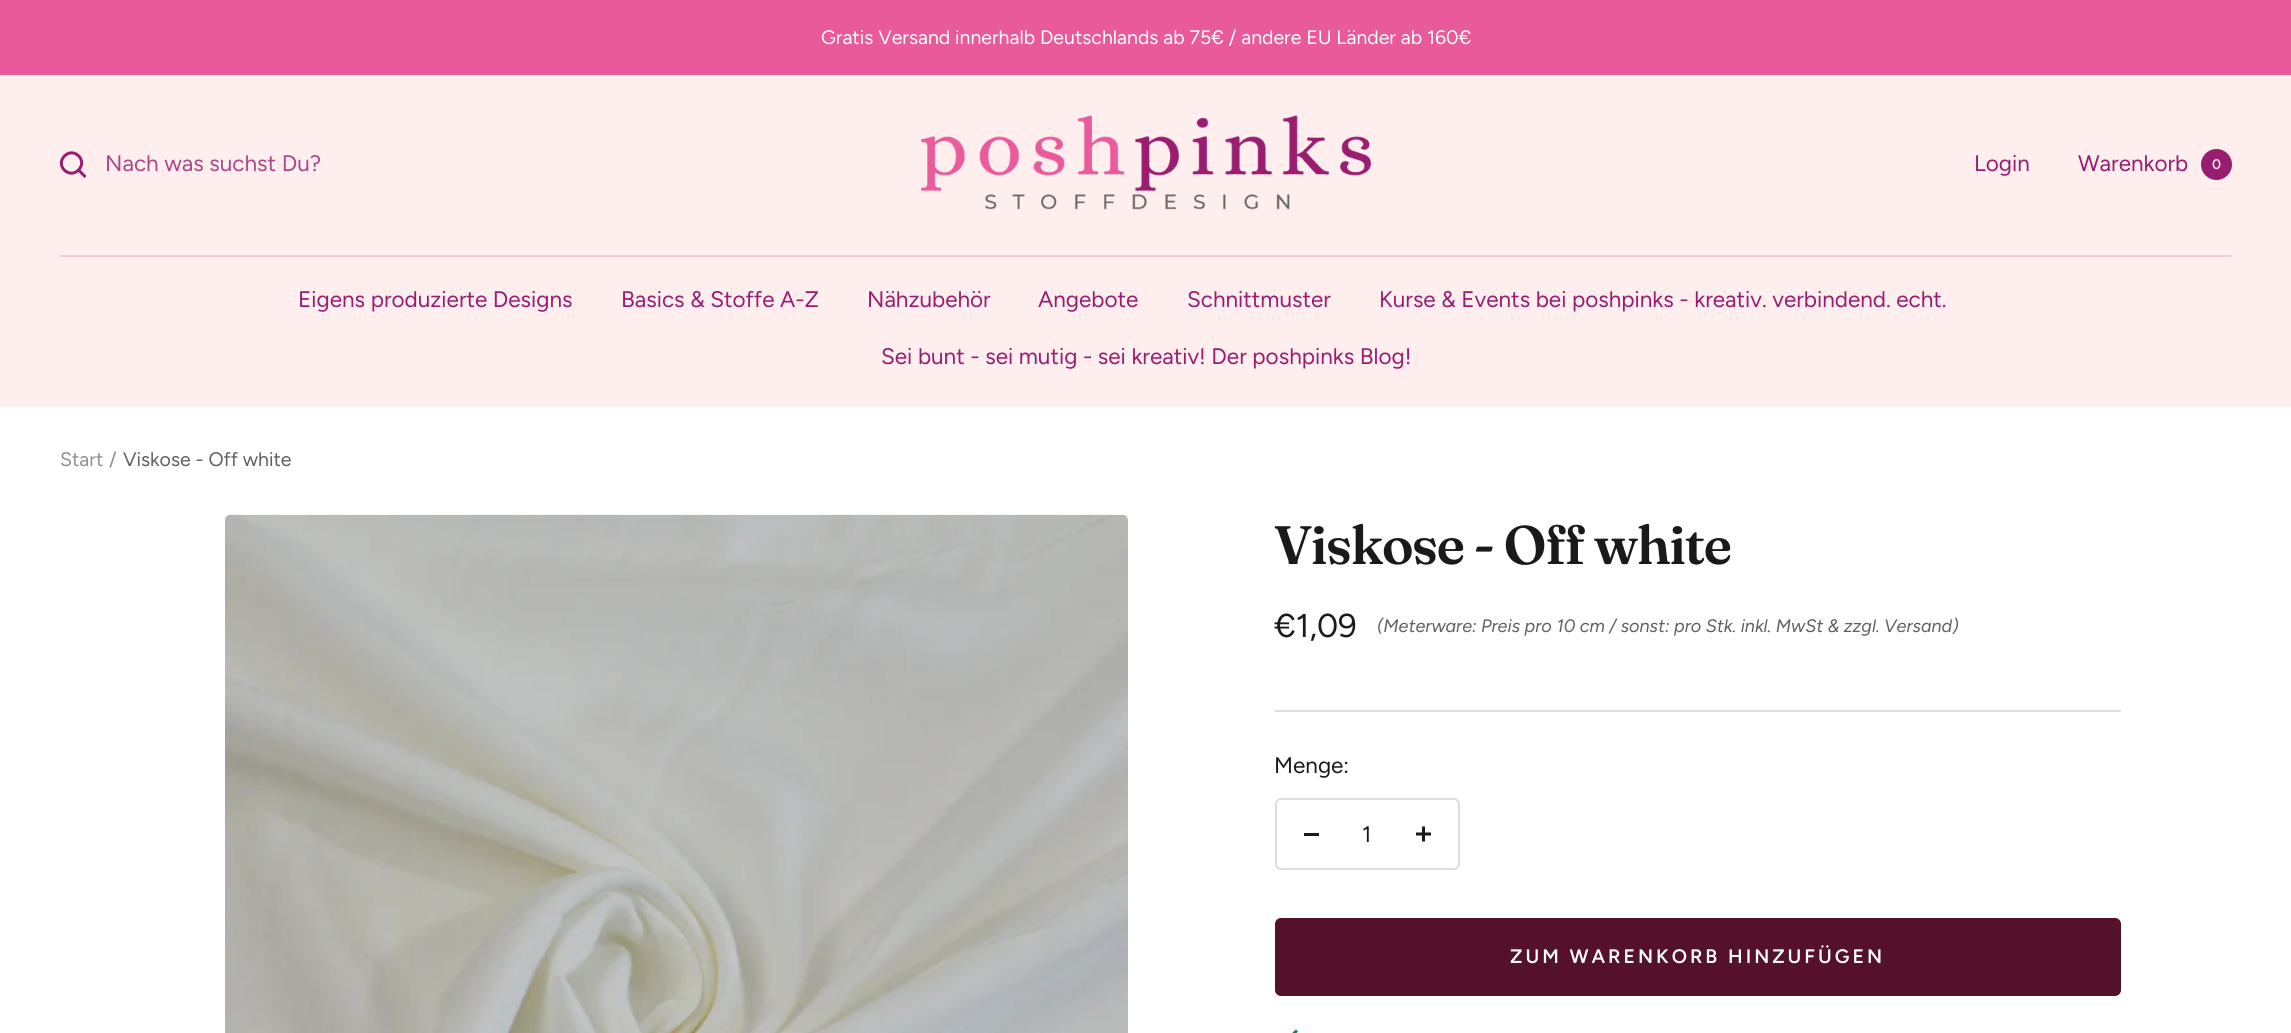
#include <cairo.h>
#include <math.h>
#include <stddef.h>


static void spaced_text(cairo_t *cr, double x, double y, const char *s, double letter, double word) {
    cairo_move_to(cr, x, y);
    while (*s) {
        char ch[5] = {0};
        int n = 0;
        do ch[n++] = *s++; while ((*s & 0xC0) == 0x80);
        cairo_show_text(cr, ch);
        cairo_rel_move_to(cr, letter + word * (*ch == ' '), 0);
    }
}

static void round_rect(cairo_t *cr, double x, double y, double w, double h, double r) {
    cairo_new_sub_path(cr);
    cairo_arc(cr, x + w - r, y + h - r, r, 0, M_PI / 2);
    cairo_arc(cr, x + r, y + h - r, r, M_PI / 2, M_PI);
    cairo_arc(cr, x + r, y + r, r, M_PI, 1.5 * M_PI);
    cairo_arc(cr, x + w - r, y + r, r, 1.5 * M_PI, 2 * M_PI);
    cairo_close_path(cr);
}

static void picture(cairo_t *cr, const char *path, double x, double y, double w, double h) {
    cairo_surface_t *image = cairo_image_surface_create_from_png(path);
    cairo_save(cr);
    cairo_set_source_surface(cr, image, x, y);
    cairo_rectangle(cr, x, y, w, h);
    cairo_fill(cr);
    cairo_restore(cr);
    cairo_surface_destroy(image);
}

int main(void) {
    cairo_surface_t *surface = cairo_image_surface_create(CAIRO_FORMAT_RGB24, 2291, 1033);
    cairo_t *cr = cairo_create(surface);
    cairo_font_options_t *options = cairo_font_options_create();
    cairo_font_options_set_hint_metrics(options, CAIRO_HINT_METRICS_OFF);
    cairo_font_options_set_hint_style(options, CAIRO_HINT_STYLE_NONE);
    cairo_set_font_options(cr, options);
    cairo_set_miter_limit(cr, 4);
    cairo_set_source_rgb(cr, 1, 1, 1);
    cairo_paint(cr);
    cairo_set_source_rgb(cr, 0.914, 0.353, 0.604);
    cairo_rectangle(cr, 0, 0, 2291, 75);
    cairo_fill(cr);
    cairo_select_font_face(cr, "Figtree", CAIRO_FONT_SLANT_NORMAL, CAIRO_FONT_WEIGHT_NORMAL);
    cairo_set_font_size(cr, 19.5);
    cairo_set_source_rgb(cr, 1, 1, 1);
    cairo_move_to(cr, 821, 44);
    cairo_show_text(cr, "Gratis Versand innerhalb Deutschlands ab 75€ / andere EU Länder ab 160€");
    cairo_set_source_rgb(cr, 1, 0.933, 0.933);
    cairo_rectangle(cr, 0, 75, 2291, 332);
    cairo_fill(cr);
    cairo_new_path(cr);
    cairo_move_to(cr, 78.5, 170);
    cairo_curve_to(cr, 88, 160.5, 74, 146.5, 64.5, 156);
    cairo_curve_to(cr, 55, 165.5, 69, 179.5, 78.5, 170);
    cairo_close_path(cr);
    cairo_move_to(cr, 78.5, 170);
    cairo_line_to(cr, 85.5, 177);
    cairo_set_source_rgb(cr, 0.596, 0.11, 0.439);
    cairo_set_line_width(cr, 3);
    cairo_stroke(cr);
    cairo_set_font_size(cr, 22.5);
    cairo_set_source_rgb(cr, 0.678, 0.275, 0.537);
    cairo_move_to(cr, 105, 171);
    cairo_show_text(cr, "Nach was suchst Du?");
    picture(cr, "img1.png", 921, 115, 450, 95);
    cairo_set_source_rgb(cr, 0.596, 0.11, 0.439);
    cairo_move_to(cr, 1974, 171);
    cairo_show_text(cr, "Login");
    cairo_move_to(cr, 2078, 171);
    cairo_show_text(cr, "Warenkorb");
    cairo_new_path(cr);
    cairo_arc(cr, 2216.5, 164.5, 15.5, 0, 2 * M_PI);
    cairo_fill(cr);
    cairo_select_font_face(cr, "Figtree SemiBold", CAIRO_FONT_SLANT_NORMAL, CAIRO_FONT_WEIGHT_NORMAL);
    cairo_set_font_size(cr, 14);
    cairo_set_source_rgb(cr, 1, 0.933, 0.933);
    cairo_move_to(cr, 2212, 169);
    cairo_show_text(cr, "0");
    cairo_set_source_rgb(cr, 0.941, 0.808, 0.859);
    cairo_rectangle(cr, 60, 255, 2172, 2);
    cairo_fill(cr);
    cairo_select_font_face(cr, "Figtree", CAIRO_FONT_SLANT_NORMAL, CAIRO_FONT_WEIGHT_NORMAL);
    cairo_set_font_size(cr, 22.5);
    cairo_set_source_rgb(cr, 0.596, 0.11, 0.439);
    cairo_move_to(cr, 298, 307);
    cairo_show_text(cr, "Eigens produzierte Designs");
    cairo_move_to(cr, 621, 307);
    cairo_show_text(cr, "Basics & Stoffe A-Z");
    cairo_move_to(cr, 867, 307);
    cairo_show_text(cr, "Nähzubehör");
    cairo_move_to(cr, 1038, 307);
    cairo_show_text(cr, "Angebote");
    cairo_move_to(cr, 1187, 307);
    cairo_show_text(cr, "Schnittmuster");
    cairo_move_to(cr, 1379, 307);
    cairo_show_text(cr, "Kurse & Events bei poshpinks - kreativ. verbindend. echt.");
    cairo_move_to(cr, 881, 364);
    cairo_show_text(cr, "Sei bunt - sei mutig - sei kreativ! Der poshpinks Blog!");
    cairo_set_font_size(cr, 19.5);
    cairo_set_source_rgb(cr, 0.561, 0.561, 0.561);
    cairo_move_to(cr, 60, 466);
    cairo_show_text(cr, "Start");
    cairo_move_to(cr, 109, 466);
    cairo_show_text(cr, "/");
    cairo_set_source_rgb(cr, 0.373, 0.373, 0.373);
    cairo_move_to(cr, 123, 466);
    cairo_show_text(cr, "Viskose - Off white");
    picture(cr, "img2.png", 225, 514, 903, 519);
    cairo_set_source_rgb(cr, 0.867, 0.867, 0.867);
    cairo_rectangle(cr, 1275, 710, 846, 2);
    cairo_fill(cr);
    cairo_select_font_face(cr, "Fraunces SemiBold", CAIRO_FONT_SLANT_NORMAL, CAIRO_FONT_WEIGHT_NORMAL);
    cairo_set_font_size(cr, 54);
    cairo_set_source_rgb(cr, 0.102, 0.102, 0.102);
    spaced_text(cr, 1274, 564, "Viskose - Off white", -1.25, 0);
    cairo_select_font_face(cr, "Figtree", CAIRO_FONT_SLANT_NORMAL, CAIRO_FONT_WEIGHT_NORMAL);
    cairo_set_font_size(cr, 33);
    cairo_move_to(cr, 1274, 637);
    cairo_show_text(cr, "€1,09");
    cairo_select_font_face(cr, "Figtree", CAIRO_FONT_SLANT_ITALIC, CAIRO_FONT_WEIGHT_NORMAL);
    cairo_set_font_size(cr, 18);
    cairo_set_source_rgb(cr, 0.373, 0.373, 0.373);
    cairo_move_to(cr, 1377, 632);
    cairo_show_text(cr, "(Meterware: Preis pro 10 cm / sonst: pro Stk. inkl. MwSt & zzgl. Versand)");
    cairo_select_font_face(cr, "Figtree", CAIRO_FONT_SLANT_NORMAL, CAIRO_FONT_WEIGHT_NORMAL);
    cairo_set_font_size(cr, 22.5);
    cairo_set_source_rgb(cr, 0.102, 0.102, 0.102);
    cairo_move_to(cr, 1274, 773);
    cairo_show_text(cr, "Menge:");
    round_rect(cr, 1276, 799, 183, 70, 5);
    cairo_set_source_rgb(cr, 0.867, 0.867, 0.867);
    cairo_set_line_width(cr, 2);
    cairo_stroke(cr);
    cairo_set_source_rgb(cr, 0.102, 0.102, 0.102);
    cairo_rectangle(cr, 1304, 833, 15, 3);
    cairo_fill(cr);
    cairo_move_to(cr, 1362, 842);
    cairo_show_text(cr, "1");
    picture(cr, "img3.png", 1416, 826, 15, 16);
    cairo_set_source_rgb(cr, 0.337, 0.067, 0.165);
    round_rect(cr, 1275, 918, 846, 78, 6);
    cairo_fill(cr);
    cairo_select_font_face(cr, "Figtree SemiBold", CAIRO_FONT_SLANT_NORMAL, CAIRO_FONT_WEIGHT_NORMAL);
    cairo_set_font_size(cr, 19.5);
    cairo_set_source_rgb(cr, 1, 1, 1);
    spaced_text(cr, 1510, 963, "ZUM WARENKORB HINZUFÜGEN", 3, 0);
    cairo_new_path(cr);
    cairo_move_to(cr, 1277, 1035.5);
    cairo_line_to(cr, 1284.5, 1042.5);
    cairo_line_to(cr, 1297, 1030.5);
    cairo_set_source_rgb(cr, 0.086, 0.514, 0.259);
    cairo_set_line_width(cr, 3);
    cairo_stroke(cr);
    cairo_surface_write_to_png(surface, "page.png");
    cairo_font_options_destroy(options);
    cairo_destroy(cr);
    cairo_surface_destroy(surface);
    return 0;
}
